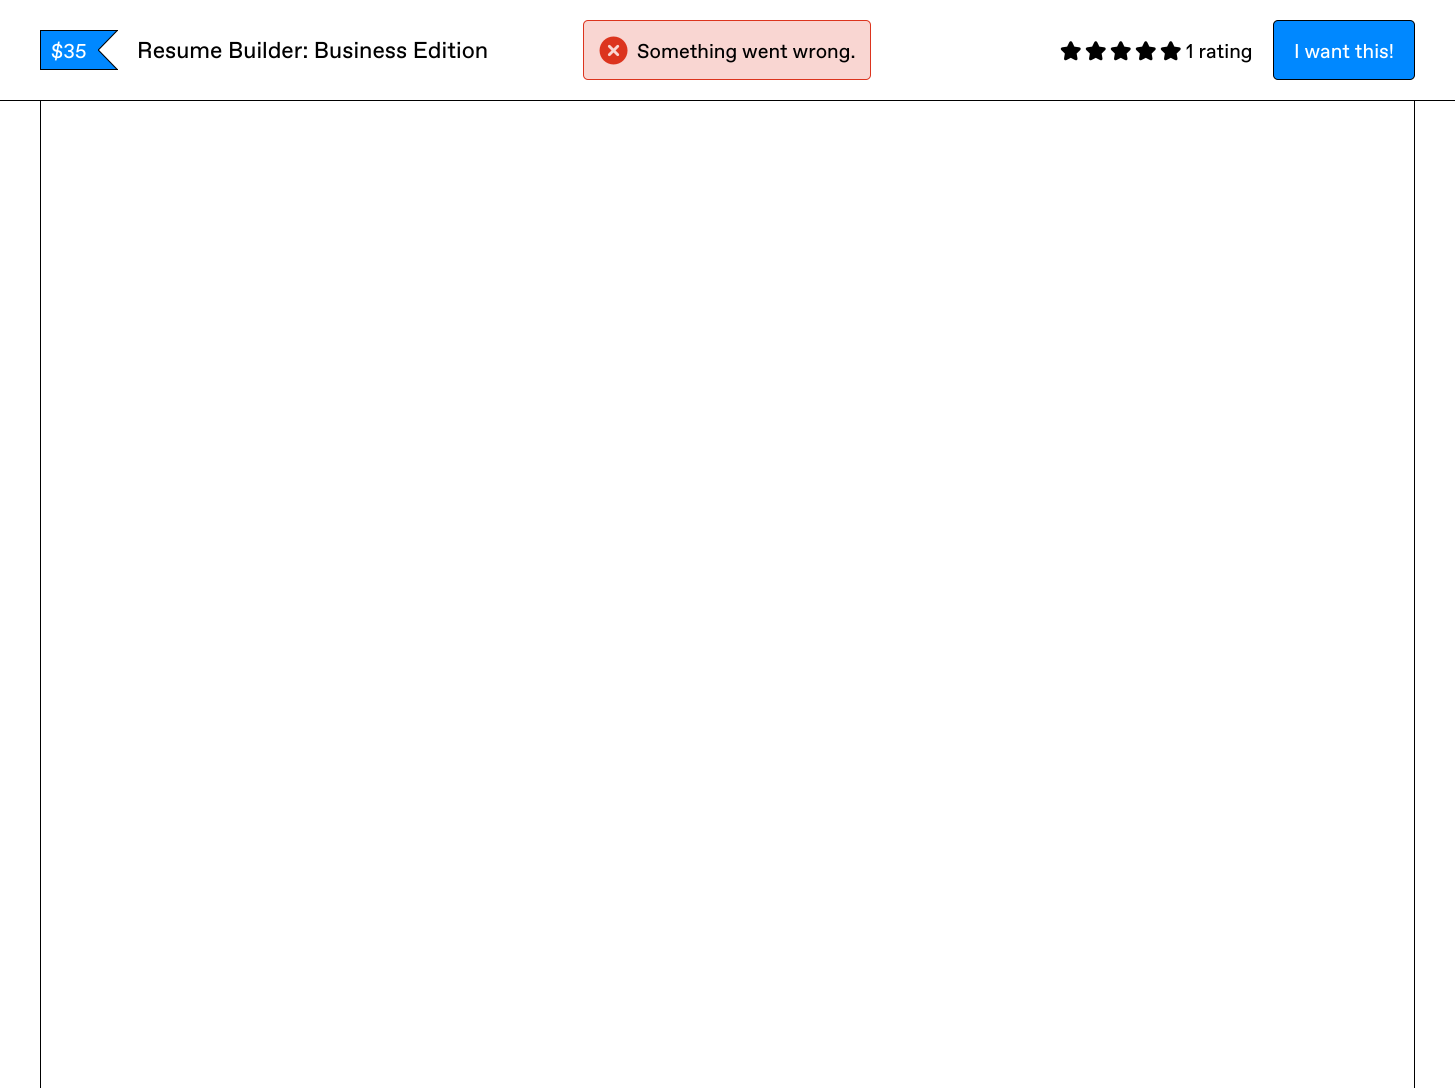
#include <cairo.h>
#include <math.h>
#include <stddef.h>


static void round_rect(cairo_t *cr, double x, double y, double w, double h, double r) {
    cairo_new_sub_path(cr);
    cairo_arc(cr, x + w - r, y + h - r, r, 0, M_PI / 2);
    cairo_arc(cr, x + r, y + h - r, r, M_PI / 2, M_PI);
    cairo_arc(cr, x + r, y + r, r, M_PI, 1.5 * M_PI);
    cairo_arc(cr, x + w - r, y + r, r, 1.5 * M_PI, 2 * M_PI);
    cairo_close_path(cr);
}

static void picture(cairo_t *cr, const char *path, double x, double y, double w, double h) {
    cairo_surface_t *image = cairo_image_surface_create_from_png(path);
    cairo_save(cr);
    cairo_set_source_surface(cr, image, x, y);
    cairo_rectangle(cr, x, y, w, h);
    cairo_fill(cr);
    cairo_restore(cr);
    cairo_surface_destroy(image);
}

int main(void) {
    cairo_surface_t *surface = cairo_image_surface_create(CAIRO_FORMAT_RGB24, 1455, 1088);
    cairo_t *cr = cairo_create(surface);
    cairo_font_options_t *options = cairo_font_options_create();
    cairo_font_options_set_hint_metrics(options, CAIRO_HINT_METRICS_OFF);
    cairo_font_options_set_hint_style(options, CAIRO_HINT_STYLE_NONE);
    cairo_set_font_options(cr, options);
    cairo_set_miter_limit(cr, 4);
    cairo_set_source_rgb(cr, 1, 1, 1);
    cairo_paint(cr);
    cairo_rectangle(cr, 40.5, 80.5, 1374, 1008);
    cairo_set_source_rgb(cr, 0, 0, 0);
    cairo_set_line_width(cr, 1);
    cairo_stroke(cr);
    cairo_rectangle(cr, 0, 100, 1455, 1);
    cairo_fill(cr);
    cairo_set_source_rgb(cr, 1, 1, 1);
    cairo_rectangle(cr, 40, 80, 1375, 20);
    cairo_fill(cr);
    cairo_set_source_rgb(cr, 0, 0, 0);
    cairo_rectangle(cr, 40, 30, 78, 1);
    cairo_fill(cr);
    cairo_rectangle(cr, 40, 69, 78, 1);
    cairo_fill(cr);
    cairo_rectangle(cr, 40, 30, 1, 40);
    cairo_fill(cr);
    cairo_set_source_rgb(cr, 0, 0.533, 1);
    cairo_rectangle(cr, 41, 31, 57, 38);
    cairo_fill(cr);
    cairo_set_source_rgb(cr, 0, 0, 0);
    cairo_new_path(cr);
    cairo_move_to(cr, 97.5, 31);
    cairo_line_to(cr, 117.5, 31);
    cairo_line_to(cr, 99, 50);
    cairo_close_path(cr);
    cairo_move_to(cr, 117.5, 69);
    cairo_line_to(cr, 97.5, 69);
    cairo_line_to(cr, 99, 50);
    cairo_close_path(cr);
    cairo_fill(cr);
    cairo_rectangle(cr, 98, 48, 1, 4);
    cairo_fill(cr);
    cairo_set_source_rgb(cr, 0, 0.533, 1);
    cairo_new_path(cr);
    cairo_move_to(cr, 96, 31);
    cairo_line_to(cr, 116, 31);
    cairo_line_to(cr, 97.5, 50);
    cairo_close_path(cr);
    cairo_move_to(cr, 116, 69);
    cairo_line_to(cr, 96, 69);
    cairo_line_to(cr, 97.5, 50);
    cairo_close_path(cr);
    cairo_fill(cr);
    cairo_select_font_face(cr, "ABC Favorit", CAIRO_FONT_SLANT_NORMAL, CAIRO_FONT_WEIGHT_NORMAL);
    cairo_set_font_size(cr, 20);
    cairo_set_source_rgb(cr, 1, 1, 1);
    cairo_move_to(cr, 51, 58);
    cairo_show_text(cr, "$35");
    cairo_set_font_size(cr, 23);
    cairo_set_source_rgb(cr, 0, 0, 0);
    cairo_move_to(cr, 137, 58);
    cairo_show_text(cr, "Resume Builder: Business Edition");
    picture(cr, "img1.png", 1060, 41, 21, 20);
    picture(cr, "img1.png", 1085, 41, 21, 20);
    picture(cr, "img1.png", 1110, 41, 21, 20);
    picture(cr, "img1.png", 1135, 41, 21, 20);
    picture(cr, "img1.png", 1160, 41, 21, 20);
    cairo_set_font_size(cr, 20);
    cairo_move_to(cr, 1186, 58);
    cairo_show_text(cr, "1 rating");
    cairo_set_source_rgb(cr, 0, 0.533, 1);
    round_rect(cr, 1273.5, 20.5, 141, 59, 4.5);
    cairo_fill_preserve(cr);
    cairo_set_source_rgb(cr, 0, 0, 0);
    cairo_stroke(cr);
    cairo_set_source_rgb(cr, 1, 1, 1);
    cairo_move_to(cr, 1294, 58);
    cairo_show_text(cr, "I want this!");
    cairo_set_source_rgb(cr, 0.973, 0.839, 0.824);
    round_rect(cr, 583.5, 20.5, 287, 59, 4.5);
    cairo_fill_preserve(cr);
    cairo_set_source_rgb(cr, 0.863, 0.204, 0.118);
    cairo_stroke(cr);
    picture(cr, "img2.png", 599, 36, 29, 29);
    cairo_set_source_rgb(cr, 0, 0, 0);
    cairo_move_to(cr, 637, 58);
    cairo_show_text(cr, "Something went wrong.");
    cairo_surface_write_to_png(surface, "page.png");
    cairo_font_options_destroy(options);
    cairo_destroy(cr);
    cairo_surface_destroy(surface);
    return 0;
}
